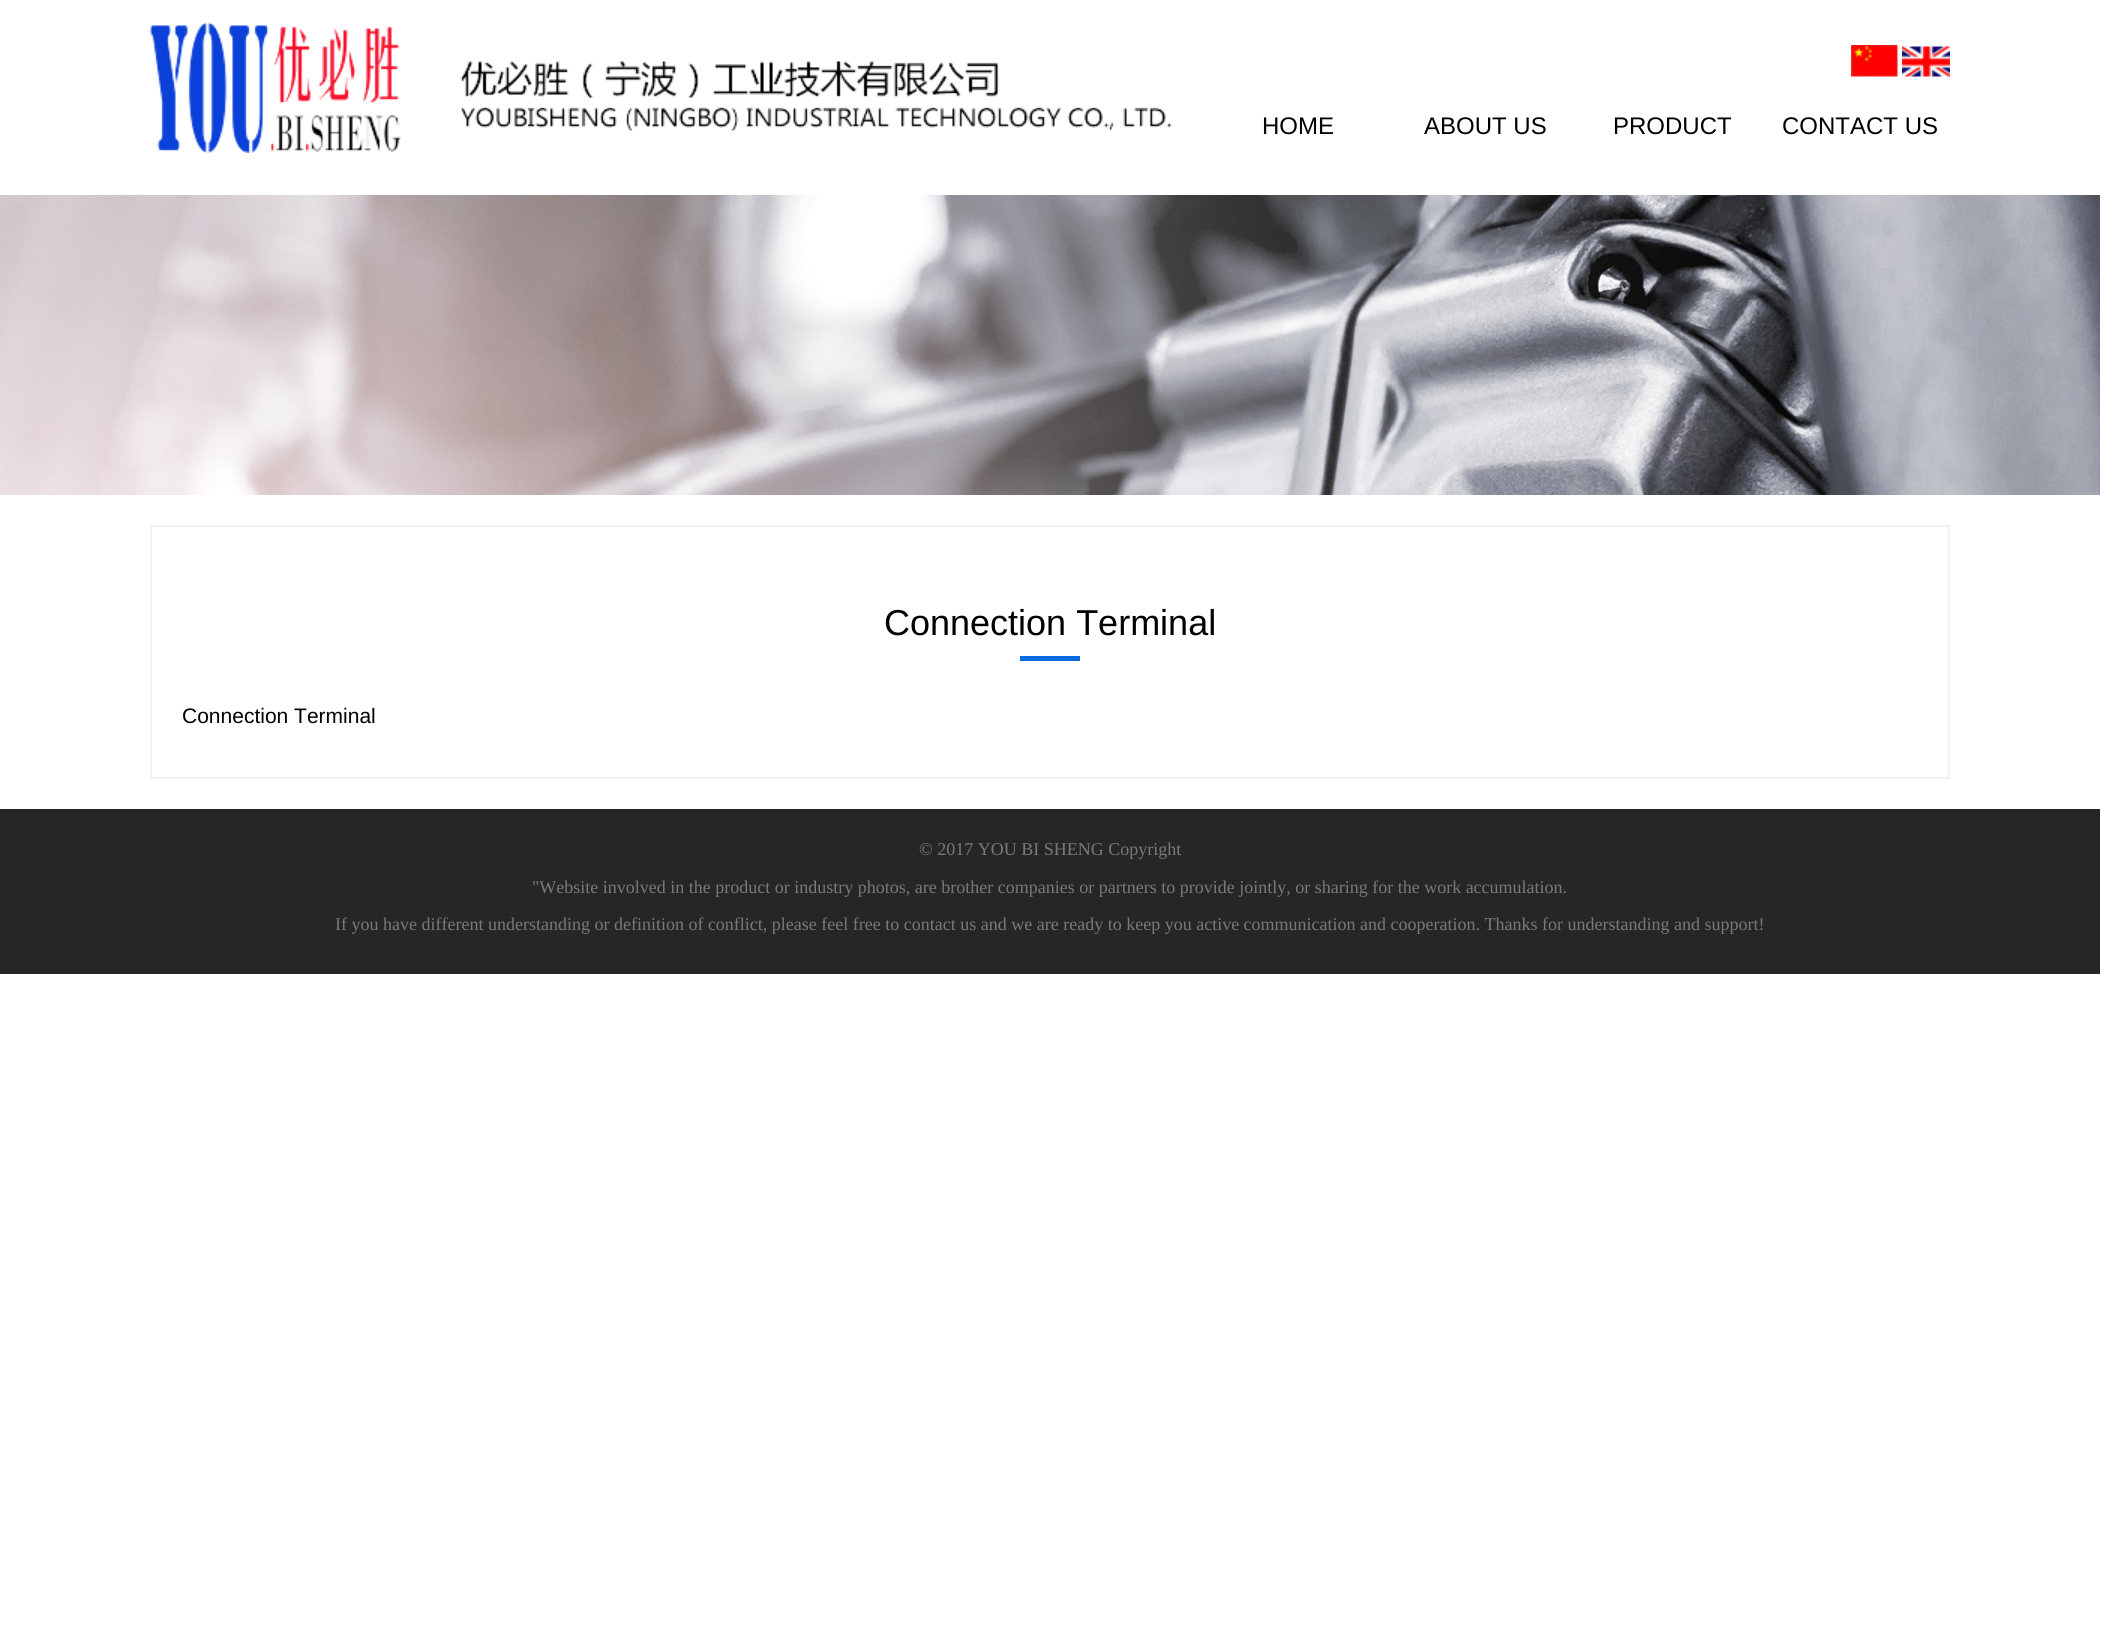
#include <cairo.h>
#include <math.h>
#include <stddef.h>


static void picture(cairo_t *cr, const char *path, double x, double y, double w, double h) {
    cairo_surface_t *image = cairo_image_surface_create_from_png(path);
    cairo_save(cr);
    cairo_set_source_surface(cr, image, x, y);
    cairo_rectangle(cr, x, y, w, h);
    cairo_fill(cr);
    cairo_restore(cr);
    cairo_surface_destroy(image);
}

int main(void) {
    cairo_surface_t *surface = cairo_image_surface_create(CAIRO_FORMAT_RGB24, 2122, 1631);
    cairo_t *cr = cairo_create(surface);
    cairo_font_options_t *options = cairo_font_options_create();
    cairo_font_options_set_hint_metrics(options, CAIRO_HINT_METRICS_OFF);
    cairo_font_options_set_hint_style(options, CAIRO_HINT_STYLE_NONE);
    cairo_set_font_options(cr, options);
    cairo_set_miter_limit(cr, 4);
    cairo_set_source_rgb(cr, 1, 1, 1);
    cairo_paint(cr);
    picture(cr, "img1.png", 150, 22, 251, 131);
    picture(cr, "img2.png", 460, 61, 712, 70);
    picture(cr, "img3.png", 1851, 45, 47, 32);
    picture(cr, "img4.png", 1902, 46, 48, 31);
    cairo_select_font_face(cr, "Liberation Sans", CAIRO_FONT_SLANT_NORMAL, CAIRO_FONT_WEIGHT_NORMAL);
    cairo_set_font_size(cr, 24);
    cairo_set_source_rgb(cr, 0, 0, 0);
    cairo_move_to(cr, 1262, 134);
    cairo_show_text(cr, "HOME");
    cairo_move_to(cr, 1424, 134);
    cairo_show_text(cr, "ABOUT US");
    cairo_move_to(cr, 1613, 134);
    cairo_show_text(cr, "PRODUCT");
    cairo_move_to(cr, 1782, 134);
    cairo_show_text(cr, "CONTACT US");
    picture(cr, "img5.png", 0, 195, 2100, 300);
    cairo_rectangle(cr, 151, 526, 1798, 252);
    cairo_set_source_rgb(cr, 0.945, 0.949, 0.957);
    cairo_stroke(cr);
    cairo_set_font_size(cr, 36);
    cairo_set_source_rgb(cr, 0, 0, 0);
    cairo_move_to(cr, 884, 635);
    cairo_show_text(cr, "Connection Terminal");
    cairo_set_source_rgb(cr, 0.027, 0.424, 0.878);
    cairo_rectangle(cr, 1020, 656, 60, 5);
    cairo_fill(cr);
    cairo_set_font_size(cr, 21);
    cairo_set_source_rgb(cr, 0, 0, 0);
    cairo_move_to(cr, 182, 723);
    cairo_show_text(cr, "Connection Terminal");
    cairo_set_source_rgb(cr, 0.149, 0.149, 0.149);
    cairo_rectangle(cr, 0, 809, 2100, 165);
    cairo_fill(cr);
    cairo_select_font_face(cr, "Liberation Serif", CAIRO_FONT_SLANT_NORMAL, CAIRO_FONT_WEIGHT_NORMAL);
    cairo_set_font_size(cr, 18);
    cairo_set_source_rgb(cr, 0.475, 0.475, 0.475);
    cairo_move_to(cr, 919, 855);
    cairo_show_text(cr, "© 2017 YOU BI SHENG Copyright");
    cairo_move_to(cr, 532, 893);
    cairo_show_text(cr, "\"Website involved in the product or industry photos, are brother companies or partners to provide jointly, or sharing for the work accumulation.");
    cairo_move_to(cr, 335, 930);
    cairo_show_text(cr, "If you have different understanding or definition of conflict, please feel free to contact us and we are ready to keep you active communication and cooperation. Thanks for understanding and support!");
    cairo_surface_write_to_png(surface, "page.png");
    cairo_font_options_destroy(options);
    cairo_destroy(cr);
    cairo_surface_destroy(surface);
    return 0;
}
